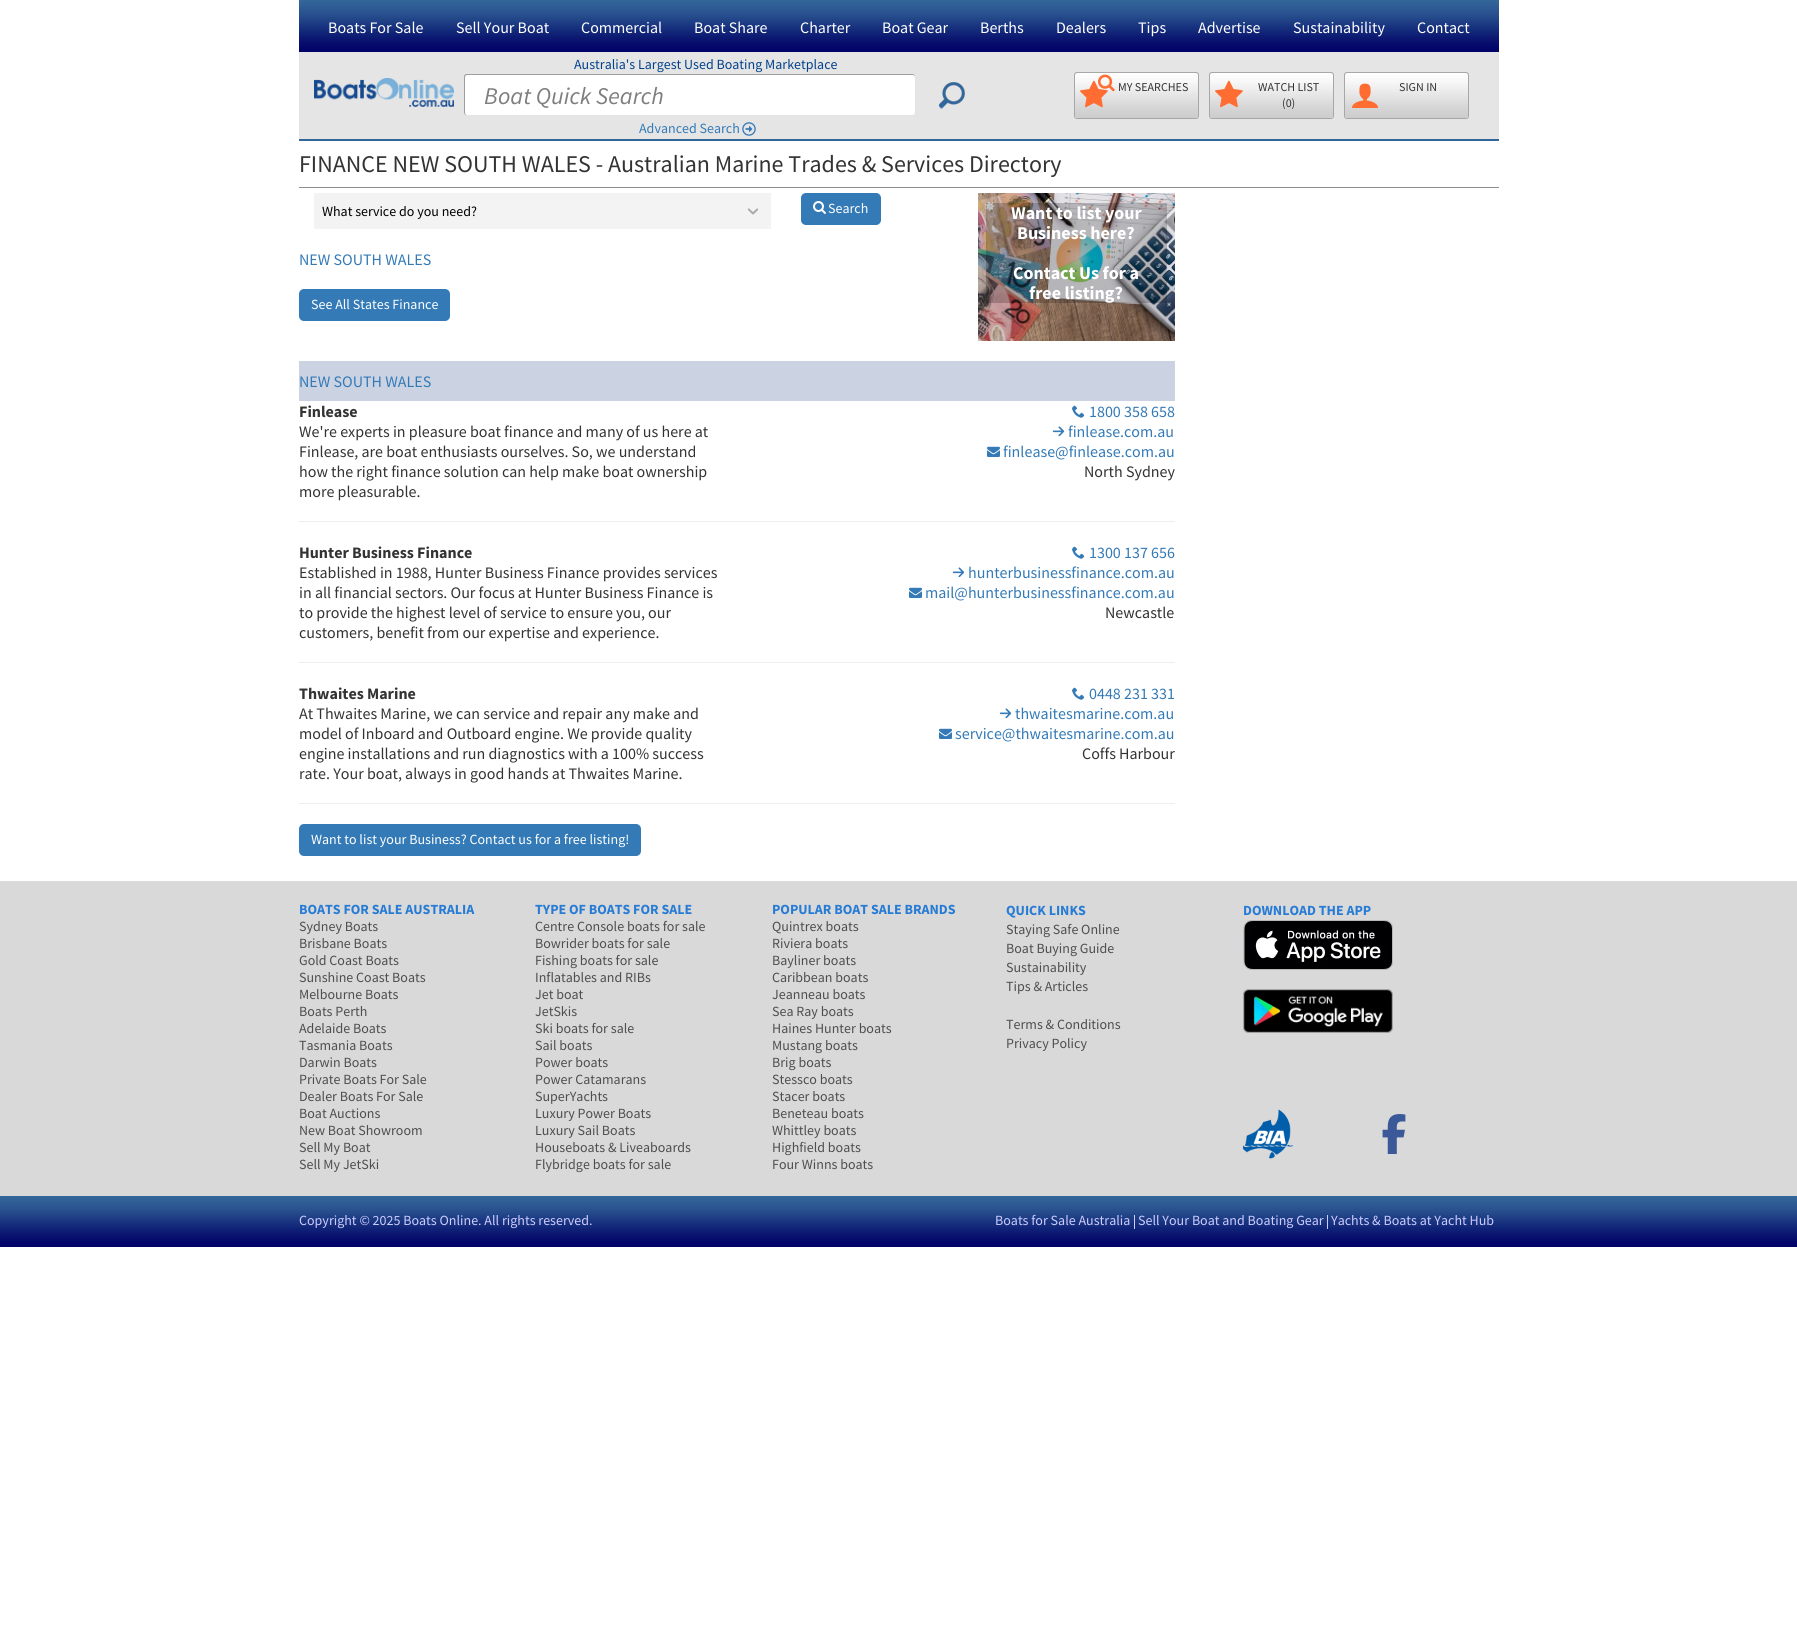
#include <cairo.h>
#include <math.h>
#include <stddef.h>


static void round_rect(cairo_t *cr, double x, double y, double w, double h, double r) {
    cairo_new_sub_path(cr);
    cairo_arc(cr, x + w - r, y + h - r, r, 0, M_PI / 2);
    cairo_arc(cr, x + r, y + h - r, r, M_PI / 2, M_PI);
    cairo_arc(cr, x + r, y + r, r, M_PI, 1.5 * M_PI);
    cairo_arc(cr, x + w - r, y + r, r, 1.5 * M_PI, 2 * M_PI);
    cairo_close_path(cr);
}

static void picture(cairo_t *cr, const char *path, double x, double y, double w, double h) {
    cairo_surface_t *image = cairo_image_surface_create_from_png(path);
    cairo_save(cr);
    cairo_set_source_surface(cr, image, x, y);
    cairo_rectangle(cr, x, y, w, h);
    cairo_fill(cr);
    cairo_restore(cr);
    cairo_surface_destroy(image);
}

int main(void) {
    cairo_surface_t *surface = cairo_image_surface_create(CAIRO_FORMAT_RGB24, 1797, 1629);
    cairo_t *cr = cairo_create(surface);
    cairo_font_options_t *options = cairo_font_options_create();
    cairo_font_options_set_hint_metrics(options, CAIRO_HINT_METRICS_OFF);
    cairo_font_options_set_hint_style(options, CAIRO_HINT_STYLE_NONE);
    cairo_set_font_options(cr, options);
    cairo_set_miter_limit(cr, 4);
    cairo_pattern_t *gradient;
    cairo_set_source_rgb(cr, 1, 1, 1);
    cairo_paint(cr);
    gradient = cairo_pattern_create_linear(899, 0, 899, 52);
    cairo_pattern_add_color_stop_rgba(gradient, 0, 0.2, 0.404, 0.6, 1);
    cairo_pattern_add_color_stop_rgba(gradient, 0.21, 0.173, 0.337, 0.573, 1);
    cairo_pattern_add_color_stop_rgba(gradient, 0.29, 0.153, 0.31, 0.553, 1);
    cairo_pattern_add_color_stop_rgba(gradient, 0.69, 0.051, 0.114, 0.455, 1);
    cairo_pattern_add_color_stop_rgba(gradient, 0.81, 0.035, 0.059, 0.427, 1);
    cairo_pattern_add_color_stop_rgba(gradient, 0.92, 0.008, 0.024, 0.412, 1);
    cairo_pattern_add_color_stop_rgba(gradient, 1, 0.008, 0.004, 0.404, 1);
    cairo_set_source(cr, gradient);
    cairo_pattern_destroy(gradient);
    cairo_rectangle(cr, 299, 0, 1200, 52);
    cairo_fill(cr);
    cairo_select_font_face(cr, "Source Sans Pro", CAIRO_FONT_SLANT_NORMAL, CAIRO_FONT_WEIGHT_NORMAL);
    cairo_set_font_size(cr, 16);
    cairo_set_source_rgb(cr, 1, 1, 1);
    cairo_move_to(cr, 328, 33);
    cairo_show_text(cr, "Boats For Sale");
    cairo_move_to(cr, 456, 33);
    cairo_show_text(cr, "Sell Your Boat");
    cairo_move_to(cr, 581, 33);
    cairo_show_text(cr, "Commercial");
    cairo_move_to(cr, 694, 33);
    cairo_show_text(cr, "Boat Share");
    cairo_move_to(cr, 800, 33);
    cairo_show_text(cr, "Charter");
    cairo_move_to(cr, 882, 33);
    cairo_show_text(cr, "Boat Gear");
    cairo_move_to(cr, 980, 33);
    cairo_show_text(cr, "Berths");
    cairo_move_to(cr, 1056, 33);
    cairo_show_text(cr, "Dealers");
    cairo_move_to(cr, 1138, 33);
    cairo_show_text(cr, "Tips");
    cairo_move_to(cr, 1198, 33);
    cairo_show_text(cr, "Advertise");
    cairo_move_to(cr, 1293, 33);
    cairo_show_text(cr, "Sustainability");
    cairo_move_to(cr, 1417, 33);
    cairo_show_text(cr, "Contact");
    cairo_set_source_rgb(cr, 0.898, 0.898, 0.898);
    cairo_rectangle(cr, 299, 52, 1200, 87);
    cairo_fill(cr);
    picture(cr, "img1.png", 314, 78, 140, 29);
    cairo_set_source_rgb(cr, 0.2, 0.4, 0.6);
    cairo_rectangle(cr, 299, 139, 1200, 2);
    cairo_fill(cr);
    cairo_set_font_size(cr, 14);
    cairo_set_source_rgb(cr, 0.012, 0.259, 0.545);
    cairo_move_to(cr, 574, 69);
    cairo_show_text(cr, "Australia's Largest Used Boating Marketplace");
    cairo_set_source_rgb(cr, 0.62, 0.62, 0.62);
    cairo_set_fill_rule(cr, CAIRO_FILL_RULE_EVEN_ODD);
    cairo_new_path(cr);
    cairo_move_to(cr, 467, 74);
    cairo_line_to(cr, 912, 74);
    cairo_curve_to(cr, 914, 74, 915, 75, 915, 77);
    cairo_line_to(cr, 915, 112);
    cairo_curve_to(cr, 915, 114, 914, 115, 912, 115);
    cairo_line_to(cr, 467, 115);
    cairo_curve_to(cr, 465, 115, 464, 114, 464, 112);
    cairo_line_to(cr, 464, 77);
    cairo_curve_to(cr, 464, 75, 465, 74, 467, 74);
    cairo_close_path(cr);
    cairo_move_to(cr, 467, 75);
    cairo_line_to(cr, 912, 75);
    cairo_curve_to(cr, 914, 75, 915, 76, 915, 77);
    cairo_line_to(cr, 915, 112);
    cairo_curve_to(cr, 915, 114, 914, 115, 912, 115);
    cairo_line_to(cr, 467, 115);
    cairo_curve_to(cr, 466, 115, 465, 114, 465, 112);
    cairo_line_to(cr, 465, 77);
    cairo_curve_to(cr, 465, 76, 466, 75, 467, 75);
    cairo_close_path(cr);
    cairo_fill(cr);
    cairo_set_source_rgb(cr, 1, 1, 1);
    round_rect(cr, 465, 75, 450, 40, 3);
    cairo_fill(cr);
    cairo_select_font_face(cr, "Source Sans Pro", CAIRO_FONT_SLANT_ITALIC, CAIRO_FONT_WEIGHT_NORMAL);
    cairo_set_font_size(cr, 24);
    cairo_set_source_rgb(cr, 0.494, 0.494, 0.498);
    cairo_move_to(cr, 484, 104);
    cairo_show_text(cr, "Boat Quick Search");
    picture(cr, "img2.png", 939, 82, 26, 27);
    round_rect(cr, 1074.5, 72.5, 124, 46, 2.5);
    cairo_set_source_rgb(cr, 0.655, 0.655, 0.655);
    cairo_set_line_width(cr, 1);
    cairo_stroke(cr);
    gradient = cairo_pattern_create_linear(1137, 73, 1137, 118);
    cairo_pattern_add_color_stop_rgba(gradient, 0, 0.996, 0.996, 0.996, 1);
    cairo_pattern_add_color_stop_rgba(gradient, 0.18, 0.973, 0.973, 0.973, 1);
    cairo_pattern_add_color_stop_rgba(gradient, 0.73, 0.847, 0.847, 0.847, 1);
    cairo_pattern_add_color_stop_rgba(gradient, 1, 0.8, 0.8, 0.8, 1);
    cairo_set_source(cr, gradient);
    cairo_pattern_destroy(gradient);
    round_rect(cr, 1075, 73, 123, 45, 3);
    cairo_fill(cr);
    picture(cr, "img4.png", 1080, 80, 28, 28);
    picture(cr, "img3.png", 1098, 74, 17, 18);
    cairo_select_font_face(cr, "Source Sans Pro", CAIRO_FONT_SLANT_NORMAL, CAIRO_FONT_WEIGHT_NORMAL);
    cairo_set_font_size(cr, 12);
    cairo_set_source_rgb(cr, 0.2, 0.2, 0.2);
    cairo_move_to(cr, 1118, 91);
    cairo_show_text(cr, "MY SEARCHES");
    round_rect(cr, 1209.5, 72.5, 124, 46, 2.5);
    cairo_set_source_rgb(cr, 0.655, 0.655, 0.655);
    cairo_stroke(cr);
    gradient = cairo_pattern_create_linear(1272, 73, 1272, 118);
    cairo_pattern_add_color_stop_rgba(gradient, 0, 0.996, 0.996, 0.996, 1);
    cairo_pattern_add_color_stop_rgba(gradient, 0.18, 0.973, 0.973, 0.973, 1);
    cairo_pattern_add_color_stop_rgba(gradient, 0.73, 0.847, 0.847, 0.847, 1);
    cairo_pattern_add_color_stop_rgba(gradient, 1, 0.8, 0.8, 0.8, 1);
    cairo_set_source(cr, gradient);
    cairo_pattern_destroy(gradient);
    round_rect(cr, 1210, 73, 123, 45, 3);
    cairo_fill(cr);
    picture(cr, "img4.png", 1215, 80, 28, 28);
    cairo_set_source_rgb(cr, 0.2, 0.2, 0.2);
    cairo_move_to(cr, 1258, 91);
    cairo_show_text(cr, "WATCH LIST");
    cairo_move_to(cr, 1282, 107);
    cairo_show_text(cr, "(0)");
    round_rect(cr, 1344.5, 72.5, 124, 46, 2.5);
    cairo_set_source_rgb(cr, 0.655, 0.655, 0.655);
    cairo_stroke(cr);
    gradient = cairo_pattern_create_linear(1407, 73, 1407, 118);
    cairo_pattern_add_color_stop_rgba(gradient, 0, 0.996, 0.996, 0.996, 1);
    cairo_pattern_add_color_stop_rgba(gradient, 0.18, 0.973, 0.973, 0.973, 1);
    cairo_pattern_add_color_stop_rgba(gradient, 0.73, 0.847, 0.847, 0.847, 1);
    cairo_pattern_add_color_stop_rgba(gradient, 1, 0.8, 0.8, 0.8, 1);
    cairo_set_source(cr, gradient);
    cairo_pattern_destroy(gradient);
    round_rect(cr, 1345, 73, 123, 45, 3);
    cairo_fill(cr);
    picture(cr, "img5.png", 1351, 83, 28, 25);
    cairo_set_source_rgb(cr, 0.2, 0.2, 0.2);
    cairo_move_to(cr, 1399, 91);
    cairo_show_text(cr, "SIGN IN");
    cairo_set_font_size(cr, 14);
    cairo_set_source_rgb(cr, 0.2, 0.478, 0.718);
    cairo_move_to(cr, 639, 133);
    cairo_show_text(cr, "Advanced Search");
    picture(cr, "img6.png", 742, 122, 14, 14);
    cairo_set_source_rgb(cr, 0.553, 0.553, 0.553);
    cairo_rectangle(cr, 299, 187, 1200, 1);
    cairo_fill(cr);
    cairo_set_font_size(cr, 24);
    cairo_set_source_rgb(cr, 0.2, 0.2, 0.2);
    cairo_move_to(cr, 299, 172);
    cairo_show_text(cr, "FINANCE NEW SOUTH WALES - Australian Marine Trades & Services Directory");
    cairo_set_source_rgb(cr, 0.953, 0.953, 0.953);
    cairo_rectangle(cr, 314, 193, 457, 36);
    cairo_fill(cr);
    cairo_set_font_size(cr, 14);
    cairo_set_source_rgb(cr, 0, 0, 0);
    cairo_move_to(cr, 322, 216);
    cairo_show_text(cr, "What service do you need?");
    picture(cr, "img7.png", 747, 208, 12, 7);
    cairo_set_source_rgb(cr, 0.2, 0.478, 0.718);
    round_rect(cr, 801, 193, 80, 32, 5);
    cairo_fill(cr);
    picture(cr, "img8.png", 813, 201, 13, 13);
    cairo_set_source_rgb(cr, 1, 1, 1);
    cairo_move_to(cr, 828, 213);
    cairo_show_text(cr, "Search");
    cairo_set_font_size(cr, 16);
    cairo_set_source_rgb(cr, 0.2, 0.478, 0.718);
    cairo_move_to(cr, 299, 265);
    cairo_show_text(cr, "NEW SOUTH WALES");
    round_rect(cr, 299, 289, 151, 32, 5);
    cairo_fill(cr);
    cairo_set_font_size(cr, 14);
    cairo_set_source_rgb(cr, 1, 1, 1);
    cairo_move_to(cr, 311, 309);
    cairo_show_text(cr, "See All States Finance");
    picture(cr, "img9.png", 978, 193, 197, 148);
    cairo_set_source_rgba(cr, 0, 0, 0, 0.2);
    cairo_rectangle(cr, 986, 203, 181, 100);
    cairo_fill(cr);
    cairo_select_font_face(cr, "Source Sans Pro", CAIRO_FONT_SLANT_NORMAL, CAIRO_FONT_WEIGHT_BOLD);
    cairo_set_font_size(cr, 18);
    cairo_set_source_rgb(cr, 1, 1, 1);
    cairo_move_to(cr, 1011, 219);
    cairo_show_text(cr, "Want to list your");
    cairo_move_to(cr, 1017, 239);
    cairo_show_text(cr, "Business here?");
    cairo_move_to(cr, 1013, 279);
    cairo_show_text(cr, "Contact Us for a");
    cairo_move_to(cr, 1029, 299);
    cairo_show_text(cr, "free listing?");
    cairo_set_source_rgb(cr, 0.796, 0.824, 0.882);
    cairo_rectangle(cr, 299, 361, 876, 40);
    cairo_fill(cr);
    cairo_select_font_face(cr, "Source Sans Pro", CAIRO_FONT_SLANT_NORMAL, CAIRO_FONT_WEIGHT_NORMAL);
    cairo_set_font_size(cr, 16);
    cairo_set_source_rgb(cr, 0.2, 0.478, 0.718);
    cairo_move_to(cr, 299, 387);
    cairo_show_text(cr, "NEW SOUTH WALES");
    cairo_select_font_face(cr, "Source Sans Pro", CAIRO_FONT_SLANT_NORMAL, CAIRO_FONT_WEIGHT_BOLD);
    cairo_set_source_rgb(cr, 0.2, 0.2, 0.2);
    cairo_move_to(cr, 299, 417);
    cairo_show_text(cr, "Finlease");
    cairo_select_font_face(cr, "Source Sans Pro", CAIRO_FONT_SLANT_NORMAL, CAIRO_FONT_WEIGHT_NORMAL);
    cairo_move_to(cr, 299, 437);
    cairo_show_text(cr, "We're experts in pleasure boat finance and many of us here at");
    cairo_move_to(cr, 299, 457);
    cairo_show_text(cr, "Finlease, are boat enthusiasts ourselves. So, we understand");
    cairo_move_to(cr, 299, 477);
    cairo_show_text(cr, "how the right finance solution can help make boat ownership");
    cairo_move_to(cr, 299, 497);
    cairo_show_text(cr, "more pleasurable.");
    picture(cr, "img10.png", 1072, 405, 13, 13);
    cairo_set_source_rgb(cr, 0.2, 0.478, 0.718);
    cairo_move_to(cr, 1089, 417);
    cairo_show_text(cr, "1800 358 658");
    picture(cr, "img11.png", 1052, 426, 13, 11);
    cairo_move_to(cr, 1068, 437);
    cairo_show_text(cr, "finlease.com.au");
    picture(cr, "img12.png", 987, 446, 13, 11);
    cairo_move_to(cr, 1003, 457);
    cairo_show_text(cr, "finlease@finlease.com.au");
    cairo_set_source_rgb(cr, 0.2, 0.2, 0.2);
    cairo_move_to(cr, 1084, 477);
    cairo_show_text(cr, "North Sydney");
    cairo_set_source_rgb(cr, 0.933, 0.933, 0.933);
    cairo_rectangle(cr, 299, 521, 876, 1);
    cairo_fill(cr);
    cairo_select_font_face(cr, "Source Sans Pro", CAIRO_FONT_SLANT_NORMAL, CAIRO_FONT_WEIGHT_BOLD);
    cairo_set_source_rgb(cr, 0.2, 0.2, 0.2);
    cairo_move_to(cr, 299, 558);
    cairo_show_text(cr, "Hunter Business Finance");
    cairo_select_font_face(cr, "Source Sans Pro", CAIRO_FONT_SLANT_NORMAL, CAIRO_FONT_WEIGHT_NORMAL);
    cairo_move_to(cr, 299, 578);
    cairo_show_text(cr, "Established in 1988, Hunter Business Finance provides services");
    cairo_move_to(cr, 299, 598);
    cairo_show_text(cr, "in all financial sectors. Our focus at Hunter Business Finance is");
    cairo_move_to(cr, 299, 618);
    cairo_show_text(cr, "to provide the highest level of service to ensure you, our");
    cairo_move_to(cr, 299, 638);
    cairo_show_text(cr, "customers, benefit from our expertise and experience.");
    picture(cr, "img10.png", 1072, 546, 13, 13);
    cairo_set_source_rgb(cr, 0.2, 0.478, 0.718);
    cairo_move_to(cr, 1089, 558);
    cairo_show_text(cr, "1300 137 656");
    picture(cr, "img11.png", 952, 567, 13, 11);
    cairo_move_to(cr, 968, 578);
    cairo_show_text(cr, "hunterbusinessfinance.com.au");
    picture(cr, "img12.png", 909, 587, 13, 11);
    cairo_move_to(cr, 925, 598);
    cairo_show_text(cr, "mail@hunterbusinessfinance.com.au");
    cairo_set_source_rgb(cr, 0.2, 0.2, 0.2);
    cairo_move_to(cr, 1105, 618);
    cairo_show_text(cr, "Newcastle");
    cairo_set_source_rgb(cr, 0.933, 0.933, 0.933);
    cairo_rectangle(cr, 299, 662, 876, 1);
    cairo_fill(cr);
    cairo_select_font_face(cr, "Source Sans Pro", CAIRO_FONT_SLANT_NORMAL, CAIRO_FONT_WEIGHT_BOLD);
    cairo_set_source_rgb(cr, 0.2, 0.2, 0.2);
    cairo_move_to(cr, 299, 699);
    cairo_show_text(cr, "Thwaites Marine");
    cairo_select_font_face(cr, "Source Sans Pro", CAIRO_FONT_SLANT_NORMAL, CAIRO_FONT_WEIGHT_NORMAL);
    cairo_move_to(cr, 299, 719);
    cairo_show_text(cr, "At Thwaites Marine, we can service and repair any make and");
    cairo_move_to(cr, 299, 739);
    cairo_show_text(cr, "model of Inboard and Outboard engine. We provide quality");
    cairo_move_to(cr, 299, 759);
    cairo_show_text(cr, "engine installations and run diagnostics with a 100% success");
    cairo_move_to(cr, 299, 779);
    cairo_show_text(cr, "rate. Your boat, always in good hands at Thwaites Marine.");
    picture(cr, "img10.png", 1072, 687, 13, 13);
    cairo_set_source_rgb(cr, 0.2, 0.478, 0.718);
    cairo_move_to(cr, 1089, 699);
    cairo_show_text(cr, "0448 231 331");
    picture(cr, "img11.png", 999, 708, 13, 11);
    cairo_move_to(cr, 1015, 719);
    cairo_show_text(cr, "thwaitesmarine.com.au");
    picture(cr, "img12.png", 939, 728, 13, 11);
    cairo_move_to(cr, 955, 739);
    cairo_show_text(cr, "service@thwaitesmarine.com.au");
    cairo_set_source_rgb(cr, 0.2, 0.2, 0.2);
    cairo_move_to(cr, 1082, 759);
    cairo_show_text(cr, "Coffs Harbour");
    cairo_set_source_rgb(cr, 0.933, 0.933, 0.933);
    cairo_rectangle(cr, 299, 803, 876, 1);
    cairo_fill(cr);
    cairo_set_source_rgb(cr, 0.2, 0.478, 0.718);
    round_rect(cr, 299, 824, 342, 32, 5);
    cairo_fill(cr);
    cairo_set_font_size(cr, 14);
    cairo_set_source_rgb(cr, 1, 1, 1);
    cairo_move_to(cr, 311, 844);
    cairo_show_text(cr, "Want to list your Business? Contact us for a free listing!");
    cairo_set_source_rgb(cr, 0.851, 0.851, 0.851);
    cairo_rectangle(cr, 0, 881, 1797, 315);
    cairo_fill(cr);
    cairo_select_font_face(cr, "Source Sans Pro", CAIRO_FONT_SLANT_NORMAL, CAIRO_FONT_WEIGHT_BOLD);
    cairo_set_source_rgb(cr, 0.149, 0.482, 0.835);
    cairo_move_to(cr, 299, 914);
    cairo_show_text(cr, "BOATS FOR SALE AUSTRALIA");
    cairo_select_font_face(cr, "Source Sans Pro", CAIRO_FONT_SLANT_NORMAL, CAIRO_FONT_WEIGHT_NORMAL);
    cairo_set_source_rgb(cr, 0.306, 0.306, 0.306);
    cairo_move_to(cr, 299, 931);
    cairo_show_text(cr, "Sydney Boats");
    cairo_move_to(cr, 299, 948);
    cairo_show_text(cr, "Brisbane Boats");
    cairo_move_to(cr, 299, 965);
    cairo_show_text(cr, "Gold Coast Boats");
    cairo_move_to(cr, 299, 982);
    cairo_show_text(cr, "Sunshine Coast Boats");
    cairo_move_to(cr, 299, 999);
    cairo_show_text(cr, "Melbourne Boats");
    cairo_move_to(cr, 299, 1016);
    cairo_show_text(cr, "Boats Perth");
    cairo_move_to(cr, 299, 1033);
    cairo_show_text(cr, "Adelaide Boats");
    cairo_move_to(cr, 299, 1050);
    cairo_show_text(cr, "Tasmania Boats");
    cairo_move_to(cr, 299, 1067);
    cairo_show_text(cr, "Darwin Boats");
    cairo_move_to(cr, 299, 1084);
    cairo_show_text(cr, "Private Boats For Sale");
    cairo_move_to(cr, 299, 1101);
    cairo_show_text(cr, "Dealer Boats For Sale");
    cairo_move_to(cr, 299, 1118);
    cairo_show_text(cr, "Boat Auctions");
    cairo_move_to(cr, 299, 1135);
    cairo_show_text(cr, "New Boat Showroom");
    cairo_move_to(cr, 299, 1152);
    cairo_show_text(cr, "Sell My Boat");
    cairo_move_to(cr, 299, 1169);
    cairo_show_text(cr, "Sell My JetSki");
    cairo_select_font_face(cr, "Source Sans Pro", CAIRO_FONT_SLANT_NORMAL, CAIRO_FONT_WEIGHT_BOLD);
    cairo_set_source_rgb(cr, 0.149, 0.482, 0.835);
    cairo_move_to(cr, 535, 914);
    cairo_show_text(cr, "TYPE OF BOATS FOR SALE");
    cairo_select_font_face(cr, "Source Sans Pro", CAIRO_FONT_SLANT_NORMAL, CAIRO_FONT_WEIGHT_NORMAL);
    cairo_set_source_rgb(cr, 0.306, 0.306, 0.306);
    cairo_move_to(cr, 535, 931);
    cairo_show_text(cr, "Centre Console boats for sale");
    cairo_move_to(cr, 535, 948);
    cairo_show_text(cr, "Bowrider boats for sale");
    cairo_move_to(cr, 535, 965);
    cairo_show_text(cr, "Fishing boats for sale");
    cairo_move_to(cr, 535, 982);
    cairo_show_text(cr, "Inflatables and RIBs");
    cairo_move_to(cr, 535, 999);
    cairo_show_text(cr, "Jet boat");
    cairo_move_to(cr, 535, 1016);
    cairo_show_text(cr, "JetSkis");
    cairo_move_to(cr, 535, 1033);
    cairo_show_text(cr, "Ski boats for sale");
    cairo_move_to(cr, 535, 1050);
    cairo_show_text(cr, "Sail boats");
    cairo_move_to(cr, 535, 1067);
    cairo_show_text(cr, "Power boats");
    cairo_move_to(cr, 535, 1084);
    cairo_show_text(cr, "Power Catamarans");
    cairo_move_to(cr, 535, 1101);
    cairo_show_text(cr, "SuperYachts");
    cairo_move_to(cr, 535, 1118);
    cairo_show_text(cr, "Luxury Power Boats");
    cairo_move_to(cr, 535, 1135);
    cairo_show_text(cr, "Luxury Sail Boats");
    cairo_move_to(cr, 535, 1152);
    cairo_show_text(cr, "Houseboats & Liveaboards");
    cairo_move_to(cr, 535, 1169);
    cairo_show_text(cr, "Flybridge boats for sale");
    cairo_select_font_face(cr, "Source Sans Pro", CAIRO_FONT_SLANT_NORMAL, CAIRO_FONT_WEIGHT_BOLD);
    cairo_set_source_rgb(cr, 0.149, 0.482, 0.835);
    cairo_move_to(cr, 772, 914);
    cairo_show_text(cr, "POPULAR BOAT SALE BRANDS");
    cairo_select_font_face(cr, "Source Sans Pro", CAIRO_FONT_SLANT_NORMAL, CAIRO_FONT_WEIGHT_NORMAL);
    cairo_set_source_rgb(cr, 0.306, 0.306, 0.306);
    cairo_move_to(cr, 772, 931);
    cairo_show_text(cr, "Quintrex boats");
    cairo_move_to(cr, 772, 948);
    cairo_show_text(cr, "Riviera boats");
    cairo_move_to(cr, 772, 965);
    cairo_show_text(cr, "Bayliner boats");
    cairo_move_to(cr, 772, 982);
    cairo_show_text(cr, "Caribbean boats");
    cairo_move_to(cr, 772, 999);
    cairo_show_text(cr, "Jeanneau boats");
    cairo_move_to(cr, 772, 1016);
    cairo_show_text(cr, "Sea Ray boats");
    cairo_move_to(cr, 772, 1033);
    cairo_show_text(cr, "Haines Hunter boats");
    cairo_move_to(cr, 772, 1050);
    cairo_show_text(cr, "Mustang boats");
    cairo_move_to(cr, 772, 1067);
    cairo_show_text(cr, "Brig boats");
    cairo_move_to(cr, 772, 1084);
    cairo_show_text(cr, "Stessco boats");
    cairo_move_to(cr, 772, 1101);
    cairo_show_text(cr, "Stacer boats");
    cairo_move_to(cr, 772, 1118);
    cairo_show_text(cr, "Beneteau boats");
    cairo_move_to(cr, 772, 1135);
    cairo_show_text(cr, "Whittley boats");
    cairo_move_to(cr, 772, 1152);
    cairo_show_text(cr, "Highfield boats");
    cairo_move_to(cr, 772, 1169);
    cairo_show_text(cr, "Four Winns boats");
    cairo_select_font_face(cr, "Source Sans Pro", CAIRO_FONT_SLANT_NORMAL, CAIRO_FONT_WEIGHT_BOLD);
    cairo_set_source_rgb(cr, 0.149, 0.482, 0.835);
    cairo_move_to(cr, 1006, 915);
    cairo_show_text(cr, "QUICK LINKS");
    cairo_select_font_face(cr, "Source Sans Pro", CAIRO_FONT_SLANT_NORMAL, CAIRO_FONT_WEIGHT_NORMAL);
    cairo_set_source_rgb(cr, 0.306, 0.306, 0.306);
    cairo_move_to(cr, 1006, 934);
    cairo_show_text(cr, "Staying Safe Online");
    cairo_move_to(cr, 1006, 953);
    cairo_show_text(cr, "Boat Buying Guide");
    cairo_move_to(cr, 1006, 972);
    cairo_show_text(cr, "Sustainability");
    cairo_move_to(cr, 1006, 991);
    cairo_show_text(cr, "Tips & Articles");
    cairo_move_to(cr, 1006, 1029);
    cairo_show_text(cr, "Terms & Conditions");
    cairo_move_to(cr, 1006, 1048);
    cairo_show_text(cr, "Privacy Policy");
    cairo_select_font_face(cr, "Source Sans Pro", CAIRO_FONT_SLANT_NORMAL, CAIRO_FONT_WEIGHT_BOLD);
    cairo_set_source_rgb(cr, 0.149, 0.482, 0.835);
    cairo_move_to(cr, 1243, 915);
    cairo_show_text(cr, "DOWNLOAD THE APP");
    picture(cr, "img13.png", 1243, 920, 150, 50);
    picture(cr, "img14.png", 1243, 989, 150, 44);
    picture(cr, "img15.png", 1243, 1109, 50, 50);
    picture(cr, "img16.png", 1382, 1114, 24, 40);
    gradient = cairo_pattern_create_linear(899, 1196, 899, 1247);
    cairo_pattern_add_color_stop_rgba(gradient, 0, 0.2, 0.404, 0.6, 1);
    cairo_pattern_add_color_stop_rgba(gradient, 0.21, 0.173, 0.337, 0.573, 1);
    cairo_pattern_add_color_stop_rgba(gradient, 0.29, 0.153, 0.31, 0.553, 1);
    cairo_pattern_add_color_stop_rgba(gradient, 0.69, 0.051, 0.114, 0.455, 1);
    cairo_pattern_add_color_stop_rgba(gradient, 0.81, 0.035, 0.059, 0.427, 1);
    cairo_pattern_add_color_stop_rgba(gradient, 0.92, 0.008, 0.024, 0.412, 1);
    cairo_pattern_add_color_stop_rgba(gradient, 1, 0.008, 0.004, 0.404, 1);
    cairo_set_source(cr, gradient);
    cairo_pattern_destroy(gradient);
    cairo_rectangle(cr, 0, 1196, 1797, 51);
    cairo_fill(cr);
    cairo_select_font_face(cr, "Source Sans Pro", CAIRO_FONT_SLANT_NORMAL, CAIRO_FONT_WEIGHT_NORMAL);
    cairo_set_source_rgb(cr, 0.8, 0.8, 1);
    cairo_move_to(cr, 299, 1225);
    cairo_show_text(cr, "Copyright © 2025 Boats Online. All rights reserved.");
    cairo_move_to(cr, 995, 1225);
    cairo_show_text(cr, "Boats for Sale Australia");
    cairo_rectangle(cr, 1134, 1215, 1, 14);
    cairo_fill(cr);
    cairo_move_to(cr, 1138, 1225);
    cairo_show_text(cr, "Sell Your Boat and Boating Gear");
    cairo_rectangle(cr, 1327, 1215, 1, 14);
    cairo_fill(cr);
    cairo_move_to(cr, 1331, 1225);
    cairo_show_text(cr, "Yachts & Boats at Yacht Hub");
    cairo_surface_write_to_png(surface, "page.png");
    cairo_font_options_destroy(options);
    cairo_destroy(cr);
    cairo_surface_destroy(surface);
    return 0;
}
